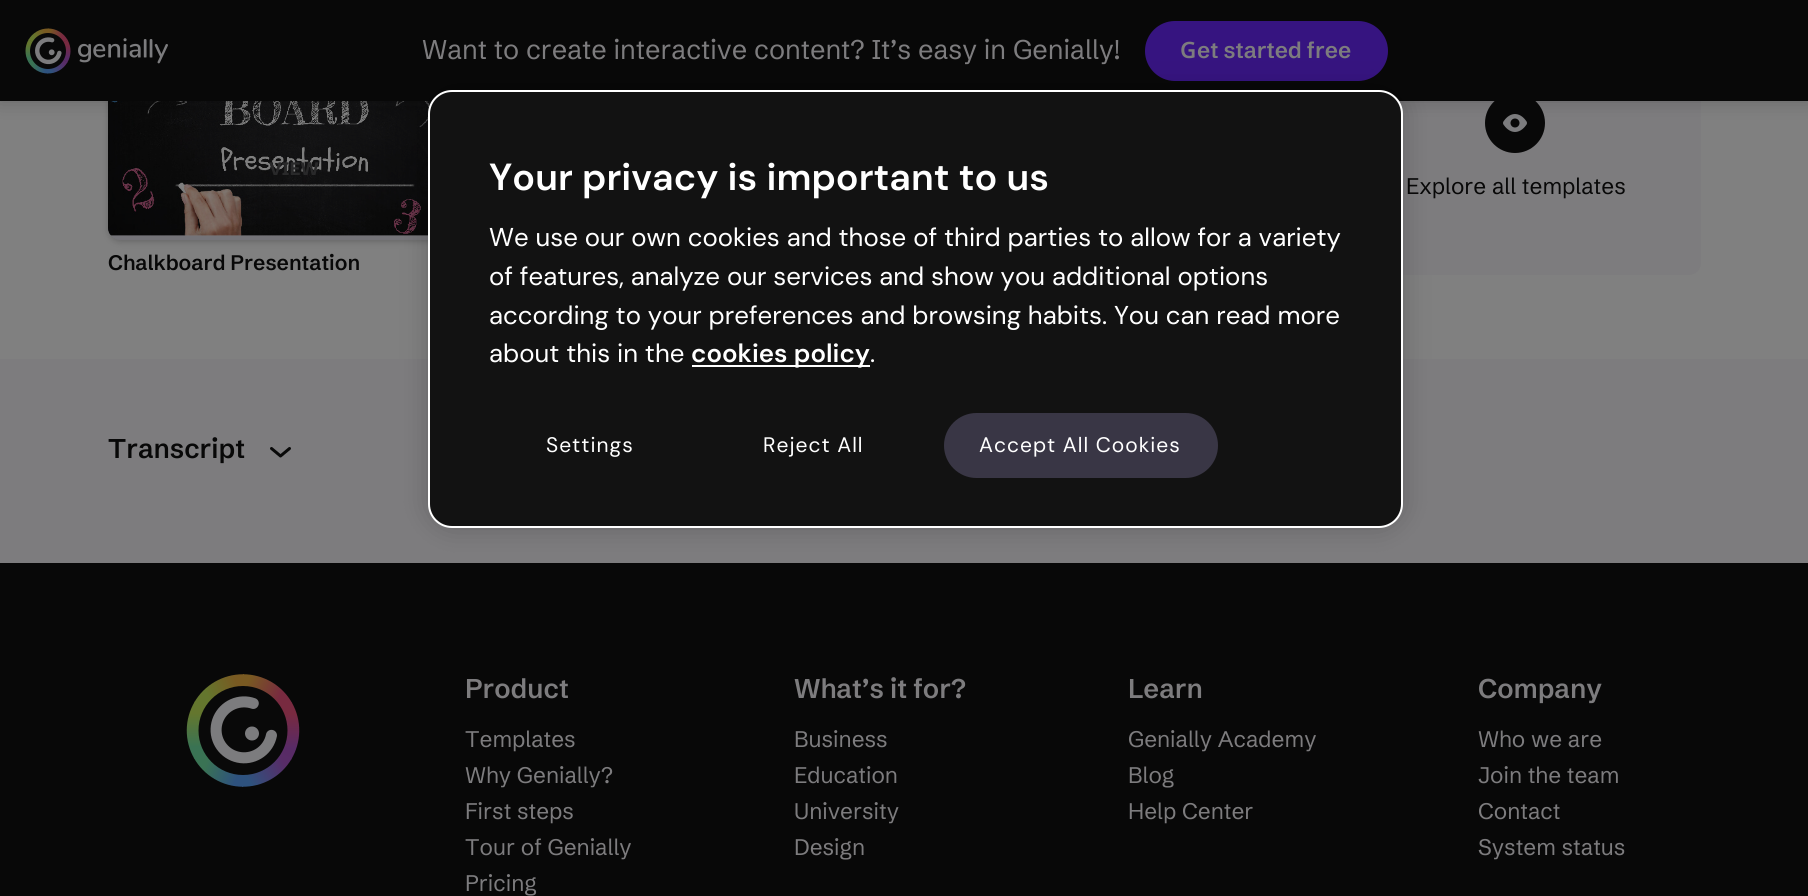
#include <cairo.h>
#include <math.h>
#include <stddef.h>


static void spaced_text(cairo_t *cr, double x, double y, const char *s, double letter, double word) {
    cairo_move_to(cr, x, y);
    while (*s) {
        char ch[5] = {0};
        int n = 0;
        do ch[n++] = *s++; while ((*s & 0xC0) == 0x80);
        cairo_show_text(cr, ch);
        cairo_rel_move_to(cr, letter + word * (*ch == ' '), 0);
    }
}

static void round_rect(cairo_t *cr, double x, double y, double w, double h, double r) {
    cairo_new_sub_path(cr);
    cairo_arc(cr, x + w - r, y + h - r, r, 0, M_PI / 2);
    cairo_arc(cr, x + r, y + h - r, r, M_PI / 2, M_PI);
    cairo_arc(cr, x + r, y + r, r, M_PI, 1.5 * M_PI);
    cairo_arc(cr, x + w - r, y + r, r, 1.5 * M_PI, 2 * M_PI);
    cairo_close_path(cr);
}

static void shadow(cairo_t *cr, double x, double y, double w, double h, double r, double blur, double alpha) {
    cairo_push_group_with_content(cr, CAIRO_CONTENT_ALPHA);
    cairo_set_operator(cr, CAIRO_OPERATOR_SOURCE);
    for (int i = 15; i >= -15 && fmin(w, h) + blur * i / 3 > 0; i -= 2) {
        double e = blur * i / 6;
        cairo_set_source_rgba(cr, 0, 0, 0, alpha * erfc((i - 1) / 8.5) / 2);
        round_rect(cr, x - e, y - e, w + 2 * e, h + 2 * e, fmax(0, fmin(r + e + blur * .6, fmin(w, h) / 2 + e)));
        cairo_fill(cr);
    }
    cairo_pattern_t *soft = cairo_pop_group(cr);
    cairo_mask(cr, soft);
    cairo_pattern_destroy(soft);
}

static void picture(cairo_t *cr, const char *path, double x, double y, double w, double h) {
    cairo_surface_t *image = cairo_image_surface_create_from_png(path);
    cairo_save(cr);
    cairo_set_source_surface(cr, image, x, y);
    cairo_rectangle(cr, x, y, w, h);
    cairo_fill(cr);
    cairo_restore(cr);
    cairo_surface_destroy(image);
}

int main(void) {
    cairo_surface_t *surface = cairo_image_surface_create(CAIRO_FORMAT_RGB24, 1808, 896);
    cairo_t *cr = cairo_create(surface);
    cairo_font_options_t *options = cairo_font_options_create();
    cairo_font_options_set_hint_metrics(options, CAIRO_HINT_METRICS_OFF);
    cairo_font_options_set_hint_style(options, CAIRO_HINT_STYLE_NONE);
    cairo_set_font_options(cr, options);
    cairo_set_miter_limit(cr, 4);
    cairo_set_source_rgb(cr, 0.502, 0.502, 0.502);
    cairo_paint(cr);
    cairo_set_source_rgb(cr, 0.035, 0.035, 0.035);
    shadow(cr, 108, 21, 372, 221, 12, 3, 0.2);
    cairo_set_source_rgb(cr, 0.455, 0.451, 0.471);
    round_rect(cr, 108, 20, 372, 220, 12);
    cairo_fill(cr);
    picture(cr, "img2.png", 108, 101, 324, 135);
    cairo_set_source_rgb(cr, 0.49, 0.486, 0.494);
    round_rect(cr, 1331, 20, 370, 255, 12);
    cairo_fill(cr);
    cairo_set_source_rgb(cr, 0.035, 0.035, 0.035);
    cairo_arc(cr, 1515, 123, 30, 0, 2 * M_PI);
    cairo_fill(cr);
    picture(cr, "img3.png", 1503, 114, 24, 18);
    cairo_set_source_rgb(cr, 0.035, 0.035, 0.035);
    shadow(cr, 0, -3, 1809, 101, 0, 10, 0.3);
    cairo_set_source_rgb(cr, 0.035, 0.035, 0.035);
    cairo_rectangle(cr, 0, 0, 1808, 101);
    cairo_fill(cr);
    picture(cr, "img1.png", 25, 28, 143, 46);
    cairo_select_font_face(cr, "Schibsted Grotesk", CAIRO_FONT_SLANT_NORMAL, CAIRO_FONT_WEIGHT_NORMAL);
    cairo_set_font_size(cr, 27);
    cairo_set_source_rgb(cr, 0.49, 0.486, 0.494);
    cairo_move_to(cr, 422, 59);
    cairo_show_text(cr, "Want to create interactive content? It’s easy in Genially!");
    cairo_set_source_rgb(cr, 0.212, 0.082, 0.502);
    round_rect(cr, 1145, 21, 243, 60, 30);
    cairo_fill(cr);
    cairo_select_font_face(cr, "Noto Sans SemiBold", CAIRO_FONT_SLANT_NORMAL, CAIRO_FONT_WEIGHT_NORMAL);
    cairo_set_font_size(cr, 22.5);
    cairo_set_source_rgb(cr, 0.49, 0.486, 0.494);
    cairo_move_to(cr, 1180, 58);
    cairo_show_text(cr, "G");
    cairo_select_font_face(cr, "Schibsted Grotesk SemiBold", CAIRO_FONT_SLANT_NORMAL, CAIRO_FONT_WEIGHT_NORMAL);
    cairo_move_to(cr, 1197, 58);
    cairo_show_text(cr, "et started free");
    cairo_select_font_face(cr, "Schibsted Grotesk", CAIRO_FONT_SLANT_NORMAL, CAIRO_FONT_WEIGHT_BOLD);
    cairo_set_font_size(cr, 18);
    cairo_set_source_rgb(cr, 0.161, 0.161, 0.165);
    cairo_move_to(cr, 269, 175);
    cairo_show_text(cr, "VIEW");
    cairo_select_font_face(cr, "Schibsted Grotesk SemiBold", CAIRO_FONT_SLANT_NORMAL, CAIRO_FONT_WEIGHT_NORMAL);
    cairo_set_font_size(cr, 21);
    cairo_set_source_rgb(cr, 0.035, 0.035, 0.035);
    cairo_move_to(cr, 108, 270);
    cairo_show_text(cr, "Chalkboard Presentation");
    cairo_select_font_face(cr, "Schibsted Grotesk", CAIRO_FONT_SLANT_NORMAL, CAIRO_FONT_WEIGHT_NORMAL);
    cairo_set_font_size(cr, 22.5);
    cairo_move_to(cr, 1406, 194);
    cairo_show_text(cr, "Explore all templates");
    cairo_set_source_rgb(cr, 0.49, 0.486, 0.494);
    cairo_rectangle(cr, 0, 359, 1808, 204);
    cairo_fill(cr);
    cairo_select_font_face(cr, "Schibsted Grotesk SemiBold", CAIRO_FONT_SLANT_NORMAL, CAIRO_FONT_WEIGHT_NORMAL);
    cairo_set_font_size(cr, 27);
    cairo_set_source_rgb(cr, 0.035, 0.035, 0.035);
    cairo_move_to(cr, 108, 458);
    cairo_show_text(cr, "Transcript");
    picture(cr, "img4.png", 270, 447, 21, 11);
    cairo_rectangle(cr, 0, 563, 1808, 333);
    cairo_fill(cr);
    picture(cr, "img5.png", 186, 674, 114, 113);
    cairo_set_source_rgb(cr, 0.49, 0.486, 0.494);
    cairo_move_to(cr, 465, 698);
    cairo_show_text(cr, "Product");
    cairo_select_font_face(cr, "Schibsted Grotesk", CAIRO_FONT_SLANT_NORMAL, CAIRO_FONT_WEIGHT_NORMAL);
    cairo_set_font_size(cr, 22.5);
    cairo_move_to(cr, 465, 747);
    cairo_show_text(cr, "Templates");
    cairo_move_to(cr, 465, 783);
    cairo_show_text(cr, "Why Genially?");
    cairo_move_to(cr, 465, 819);
    cairo_show_text(cr, "First steps");
    cairo_move_to(cr, 465, 855);
    cairo_show_text(cr, "Tour of Genially");
    cairo_move_to(cr, 465, 891);
    cairo_show_text(cr, "Pricing");
    cairo_select_font_face(cr, "Schibsted Grotesk SemiBold", CAIRO_FONT_SLANT_NORMAL, CAIRO_FONT_WEIGHT_NORMAL);
    cairo_set_font_size(cr, 27);
    cairo_move_to(cr, 794, 698);
    cairo_show_text(cr, "What’s it for?");
    cairo_select_font_face(cr, "Schibsted Grotesk", CAIRO_FONT_SLANT_NORMAL, CAIRO_FONT_WEIGHT_NORMAL);
    cairo_set_font_size(cr, 22.5);
    cairo_move_to(cr, 794, 747);
    cairo_show_text(cr, "Business");
    cairo_move_to(cr, 794, 783);
    cairo_show_text(cr, "Education");
    cairo_move_to(cr, 794, 819);
    cairo_show_text(cr, "University");
    cairo_move_to(cr, 794, 855);
    cairo_show_text(cr, "Design");
    cairo_select_font_face(cr, "Schibsted Grotesk SemiBold", CAIRO_FONT_SLANT_NORMAL, CAIRO_FONT_WEIGHT_NORMAL);
    cairo_set_font_size(cr, 27);
    cairo_move_to(cr, 1128, 698);
    cairo_show_text(cr, "Learn");
    cairo_select_font_face(cr, "Schibsted Grotesk", CAIRO_FONT_SLANT_NORMAL, CAIRO_FONT_WEIGHT_NORMAL);
    cairo_set_font_size(cr, 22.5);
    cairo_move_to(cr, 1128, 747);
    cairo_show_text(cr, "Genially Academy");
    cairo_move_to(cr, 1128, 783);
    cairo_show_text(cr, "Blog");
    cairo_move_to(cr, 1128, 819);
    cairo_show_text(cr, "Help Center");
    cairo_select_font_face(cr, "Schibsted Grotesk SemiBold", CAIRO_FONT_SLANT_NORMAL, CAIRO_FONT_WEIGHT_NORMAL);
    cairo_set_font_size(cr, 27);
    cairo_move_to(cr, 1478, 698);
    cairo_show_text(cr, "Company");
    cairo_select_font_face(cr, "Schibsted Grotesk", CAIRO_FONT_SLANT_NORMAL, CAIRO_FONT_WEIGHT_NORMAL);
    cairo_set_font_size(cr, 22.5);
    cairo_move_to(cr, 1478, 747);
    cairo_show_text(cr, "Who we are");
    cairo_move_to(cr, 1478, 783);
    cairo_show_text(cr, "Join the team");
    cairo_move_to(cr, 1478, 819);
    cairo_show_text(cr, "Contact");
    cairo_move_to(cr, 1478, 855);
    cairo_show_text(cr, "System status");
    cairo_set_source_rgb(cr, 0, 0, 0);
    shadow(cr, 428, 90, 975, 438, 24, 13.5, 0.2);
    cairo_set_source_rgb(cr, 0.071, 0.071, 0.071);
    round_rect(cr, 429, 91, 973, 436, 23);
    cairo_fill_preserve(cr);
    cairo_set_source_rgb(cr, 1, 1, 1);
    cairo_stroke(cr);
    cairo_select_font_face(cr, "DM Sans SemiBold", CAIRO_FONT_SLANT_NORMAL, CAIRO_FONT_WEIGHT_NORMAL);
    cairo_set_font_size(cr, 37.75);
    cairo_move_to(cr, 489, 190);
    cairo_show_text(cr, "Your privacy is important to us");
    cairo_select_font_face(cr, "DM Sans", CAIRO_FONT_SLANT_NORMAL, CAIRO_FONT_WEIGHT_NORMAL);
    cairo_set_font_size(cr, 25.8);
    cairo_move_to(cr, 489, 246);
    cairo_show_text(cr, "We use our own cookies and those of third parties to allow for a variety");
    cairo_move_to(cr, 489, 285);
    cairo_show_text(cr, "of features, analyze our services and show you additional options");
    cairo_move_to(cr, 489, 324);
    cairo_show_text(cr, "according to your preferences and browsing habits. You can read more");
    cairo_move_to(cr, 489, 362);
    cairo_show_text(cr, "about this in the");
    cairo_rectangle(cr, 692, 365, 178, 2);
    cairo_fill(cr);
    cairo_select_font_face(cr, "DM Sans SemiBold", CAIRO_FONT_SLANT_NORMAL, CAIRO_FONT_WEIGHT_NORMAL);
    cairo_move_to(cr, 691, 362);
    cairo_show_text(cr, "cookies policy");
    cairo_select_font_face(cr, "DM Sans", CAIRO_FONT_SLANT_NORMAL, CAIRO_FONT_WEIGHT_NORMAL);
    cairo_move_to(cr, 870, 362);
    cairo_show_text(cr, ".");
    cairo_set_font_size(cr, 21);
    spaced_text(cr, 546, 452, "Settings", 1, 0);
    spaced_text(cr, 763, 452, "Reject All", 1, 0);
    cairo_set_source_rgb(cr, 0.224, 0.212, 0.271);
    round_rect(cr, 943, 412, 276, 67, 33.5);
    cairo_fill_preserve(cr);
    cairo_set_source_rgb(cr, 0.071, 0.071, 0.071);
    cairo_stroke(cr);
    cairo_set_source_rgb(cr, 1, 1, 1);
    spaced_text(cr, 979, 452, "Accept All Cookies", 1, 0);
    cairo_surface_write_to_png(surface, "page.png");
    cairo_font_options_destroy(options);
    cairo_destroy(cr);
    cairo_surface_destroy(surface);
    return 0;
}
